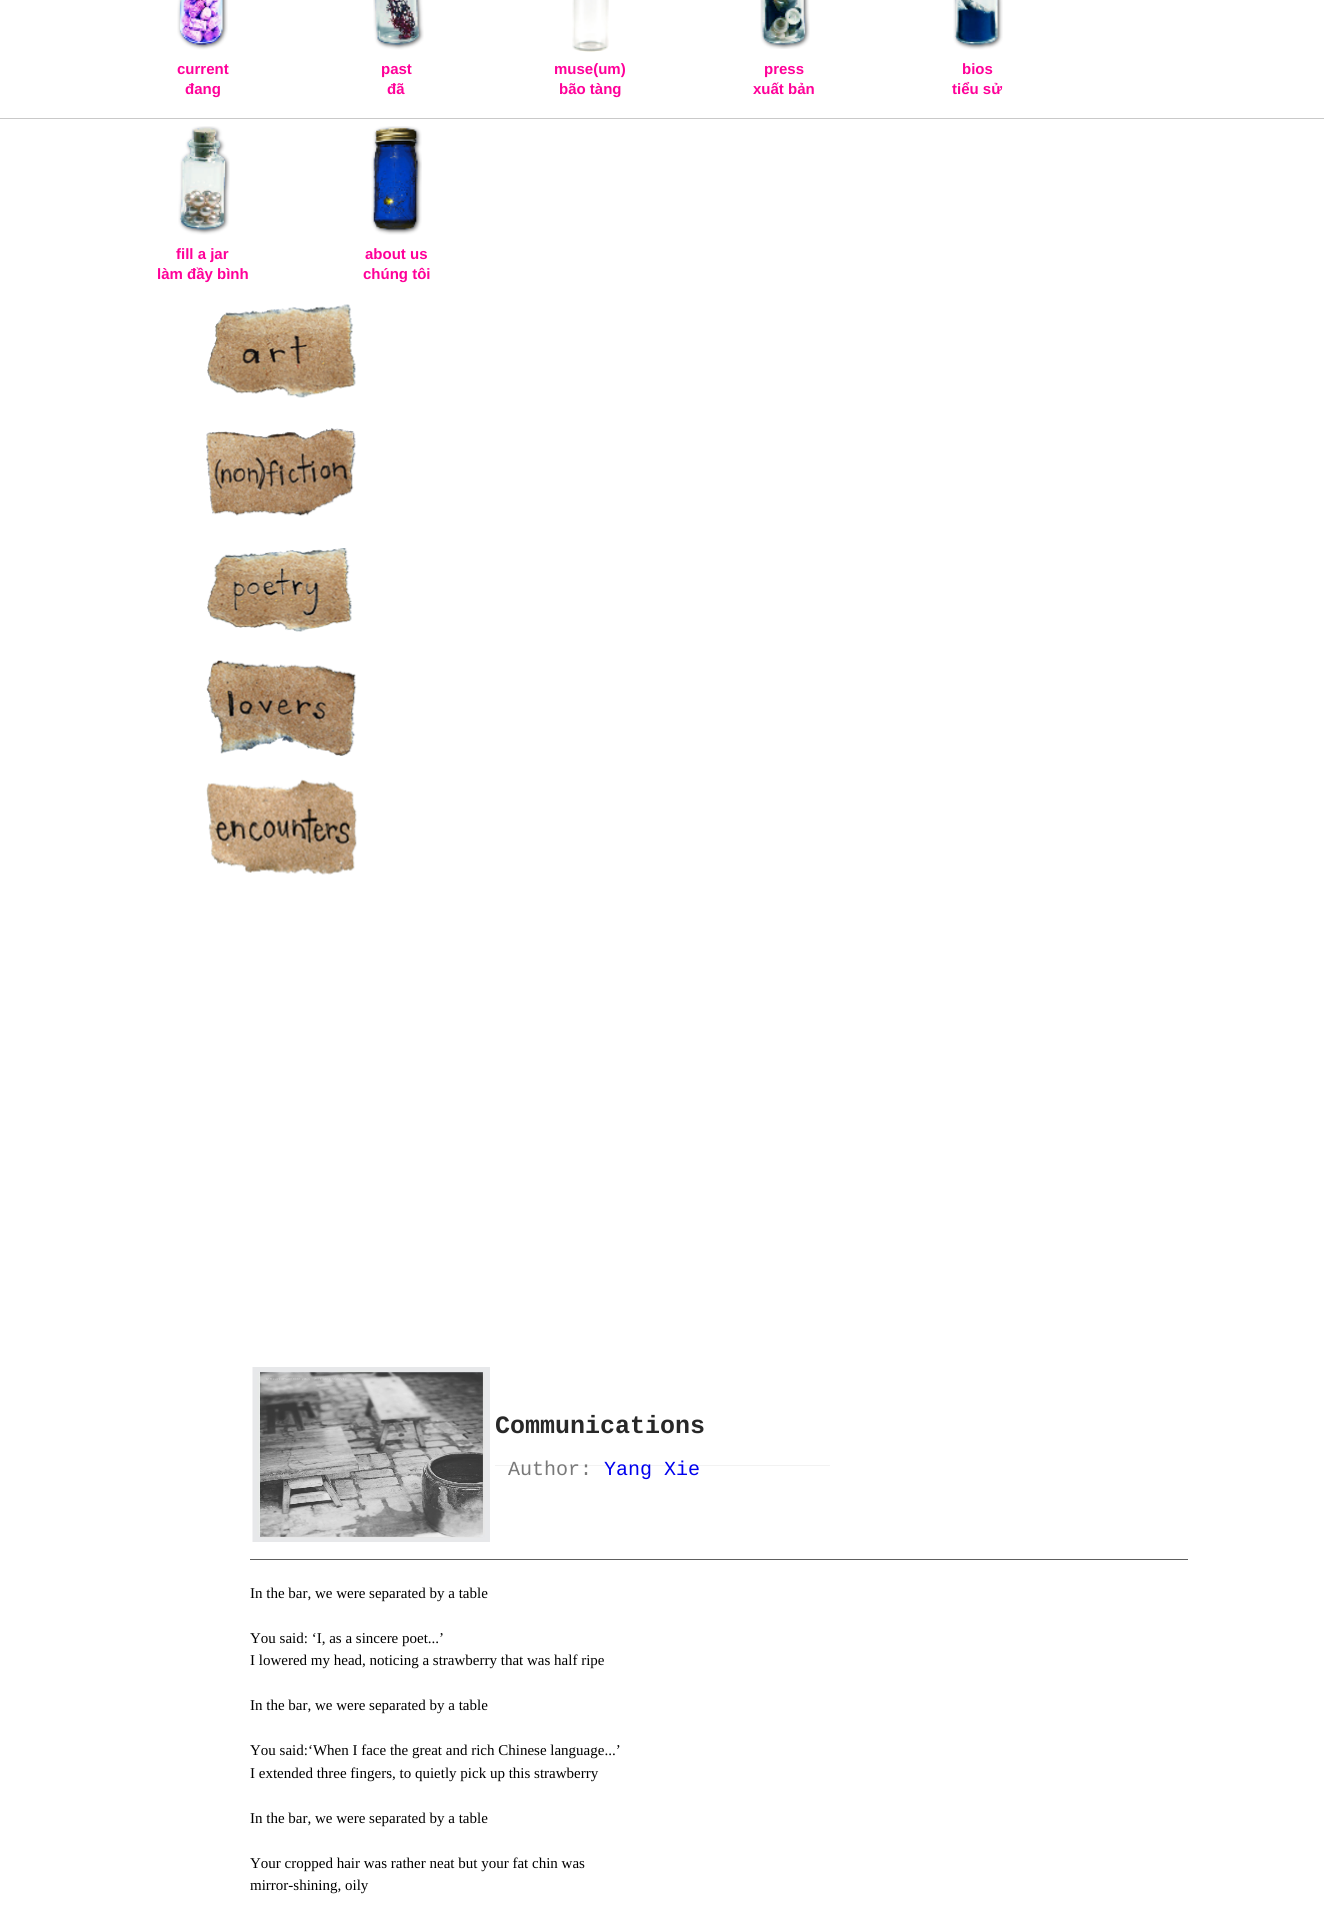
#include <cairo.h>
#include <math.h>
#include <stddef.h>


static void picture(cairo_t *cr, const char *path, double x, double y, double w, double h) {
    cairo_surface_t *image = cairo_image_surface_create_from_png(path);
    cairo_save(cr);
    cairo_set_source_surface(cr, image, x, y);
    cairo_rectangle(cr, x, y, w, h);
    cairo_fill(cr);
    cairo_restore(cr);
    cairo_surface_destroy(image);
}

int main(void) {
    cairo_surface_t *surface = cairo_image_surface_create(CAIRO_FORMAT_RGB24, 1324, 1911);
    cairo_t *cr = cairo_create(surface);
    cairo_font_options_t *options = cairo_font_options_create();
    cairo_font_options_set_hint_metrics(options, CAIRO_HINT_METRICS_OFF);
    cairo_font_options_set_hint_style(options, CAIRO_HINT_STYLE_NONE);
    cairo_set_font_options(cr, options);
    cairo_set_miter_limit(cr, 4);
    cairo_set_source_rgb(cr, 1, 1, 1);
    cairo_paint(cr);
    cairo_set_source_rgb(cr, 0.788, 0.788, 0.788);
    cairo_rectangle(cr, 0, 118, 1324, 1);
    cairo_fill(cr);
    picture(cr, "img1.png", 177, 0, 51, 50);
    cairo_select_font_face(cr, "Liberation Sans", CAIRO_FONT_SLANT_NORMAL, CAIRO_FONT_WEIGHT_BOLD);
    cairo_set_font_size(cr, 15);
    cairo_set_source_rgb(cr, 1, 0, 0.6);
    cairo_move_to(cr, 177, 74);
    cairo_show_text(cr, "current");
    cairo_move_to(cr, 185, 94);
    cairo_show_text(cr, "đang");
    picture(cr, "img2.png", 373, 0, 51, 50);
    cairo_move_to(cr, 381, 74);
    cairo_show_text(cr, "past");
    cairo_move_to(cr, 387, 94);
    cairo_show_text(cr, "đã");
    picture(cr, "img3.png", 572, 0, 37, 52);
    cairo_move_to(cr, 554, 74);
    cairo_show_text(cr, "muse(um)");
    cairo_move_to(cr, 559, 94);
    cairo_show_text(cr, "bão tàng");
    picture(cr, "img4.png", 760, 0, 50, 49);
    cairo_move_to(cr, 764, 74);
    cairo_show_text(cr, "press");
    cairo_move_to(cr, 753, 94);
    cairo_show_text(cr, "xuất bản");
    picture(cr, "img5.png", 953, 0, 50, 50);
    cairo_move_to(cr, 962, 74);
    cairo_show_text(cr, "bios");
    cairo_move_to(cr, 952, 94);
    cairo_show_text(cr, "tiểu sử");
    picture(cr, "img6.png", 178, 126, 52, 109);
    cairo_move_to(cr, 176, 259);
    cairo_show_text(cr, "fill a jar");
    cairo_move_to(cr, 157, 279);
    cairo_show_text(cr, "làm đầy bình");
    picture(cr, "img7.png", 371, 126, 51, 109);
    cairo_move_to(cr, 365, 259);
    cairo_show_text(cr, "about us");
    cairo_move_to(cr, 363, 279);
    cairo_show_text(cr, "chúng tôi");
    picture(cr, "img8.png", 207, 304, 149, 94);
    picture(cr, "img9.png", 206, 428, 150, 88);
    picture(cr, "img10.png", 207, 548, 145, 84);
    picture(cr, "img11.png", 206, 660, 151, 96);
    picture(cr, "img12.png", 206, 779, 151, 96);
    cairo_set_source_rgb(cr, 0.369, 0.369, 0.369);
    cairo_rectangle(cr, 250, 1559, 938, 1);
    cairo_fill(cr);
    picture(cr, "img13.png", 252, 1367, 238, 175);
    cairo_select_font_face(cr, "Liberation Mono", CAIRO_FONT_SLANT_NORMAL, CAIRO_FONT_WEIGHT_BOLD);
    cairo_set_font_size(cr, 25);
    cairo_set_source_rgb(cr, 0.157, 0.157, 0.157);
    cairo_move_to(cr, 495, 1433);
    cairo_show_text(cr, "Communications");
    cairo_set_source_rgb(cr, 0.949, 0.949, 0.949);
    cairo_rectangle(cr, 495, 1465, 335, 1);
    cairo_fill(cr);
    cairo_select_font_face(cr, "Liberation Mono", CAIRO_FONT_SLANT_NORMAL, CAIRO_FONT_WEIGHT_NORMAL);
    cairo_set_font_size(cr, 20);
    cairo_set_source_rgb(cr, 0.475, 0.475, 0.475);
    cairo_move_to(cr, 508, 1475);
    cairo_show_text(cr, "Author:");
    cairo_set_source_rgb(cr, 0, 0, 0.933);
    cairo_move_to(cr, 604, 1475);
    cairo_show_text(cr, "Yang Xie");
    cairo_select_font_face(cr, "Liberation Serif", CAIRO_FONT_SLANT_NORMAL, CAIRO_FONT_WEIGHT_NORMAL);
    cairo_set_font_size(cr, 15);
    cairo_set_source_rgb(cr, 0, 0, 0);
    cairo_move_to(cr, 250, 1598);
    cairo_show_text(cr, "In the bar, we were separated by a table");
    cairo_move_to(cr, 250, 1643);
    cairo_show_text(cr, "You said: ‘I, as a sincere poet...’");
    cairo_move_to(cr, 250, 1665);
    cairo_show_text(cr, "I lowered my head, noticing a strawberry that was half ripe");
    cairo_move_to(cr, 250, 1710);
    cairo_show_text(cr, "In the bar, we were separated by a table");
    cairo_move_to(cr, 250, 1755);
    cairo_show_text(cr, "You said:‘When I face the great and rich Chinese language...’");
    cairo_move_to(cr, 250, 1778);
    cairo_show_text(cr, "I extended three fingers, to quietly pick up this strawberry");
    cairo_move_to(cr, 250, 1823);
    cairo_show_text(cr, "In the bar, we were separated by a table");
    cairo_move_to(cr, 250, 1868);
    cairo_show_text(cr, "Your cropped hair was rather neat but your fat chin was");
    cairo_move_to(cr, 250, 1890);
    cairo_show_text(cr, "mirror-shining, oily");
    cairo_surface_write_to_png(surface, "page.png");
    cairo_font_options_destroy(options);
    cairo_destroy(cr);
    cairo_surface_destroy(surface);
    return 0;
}
